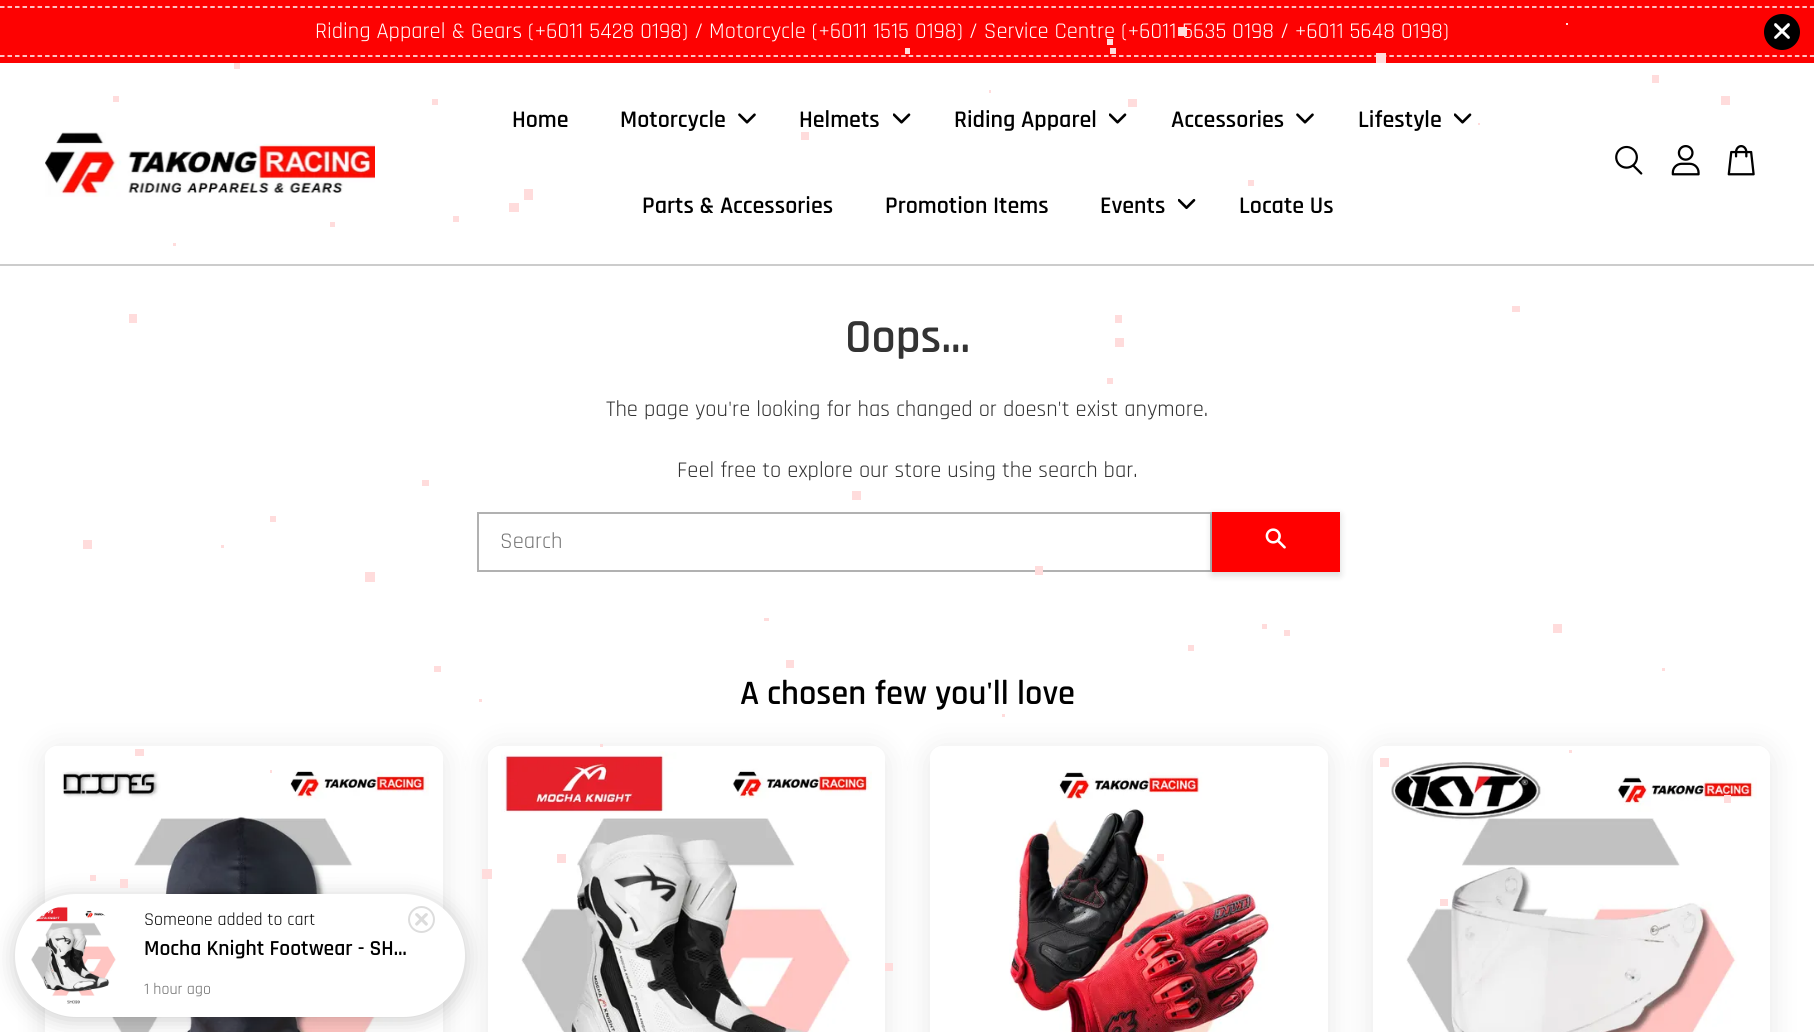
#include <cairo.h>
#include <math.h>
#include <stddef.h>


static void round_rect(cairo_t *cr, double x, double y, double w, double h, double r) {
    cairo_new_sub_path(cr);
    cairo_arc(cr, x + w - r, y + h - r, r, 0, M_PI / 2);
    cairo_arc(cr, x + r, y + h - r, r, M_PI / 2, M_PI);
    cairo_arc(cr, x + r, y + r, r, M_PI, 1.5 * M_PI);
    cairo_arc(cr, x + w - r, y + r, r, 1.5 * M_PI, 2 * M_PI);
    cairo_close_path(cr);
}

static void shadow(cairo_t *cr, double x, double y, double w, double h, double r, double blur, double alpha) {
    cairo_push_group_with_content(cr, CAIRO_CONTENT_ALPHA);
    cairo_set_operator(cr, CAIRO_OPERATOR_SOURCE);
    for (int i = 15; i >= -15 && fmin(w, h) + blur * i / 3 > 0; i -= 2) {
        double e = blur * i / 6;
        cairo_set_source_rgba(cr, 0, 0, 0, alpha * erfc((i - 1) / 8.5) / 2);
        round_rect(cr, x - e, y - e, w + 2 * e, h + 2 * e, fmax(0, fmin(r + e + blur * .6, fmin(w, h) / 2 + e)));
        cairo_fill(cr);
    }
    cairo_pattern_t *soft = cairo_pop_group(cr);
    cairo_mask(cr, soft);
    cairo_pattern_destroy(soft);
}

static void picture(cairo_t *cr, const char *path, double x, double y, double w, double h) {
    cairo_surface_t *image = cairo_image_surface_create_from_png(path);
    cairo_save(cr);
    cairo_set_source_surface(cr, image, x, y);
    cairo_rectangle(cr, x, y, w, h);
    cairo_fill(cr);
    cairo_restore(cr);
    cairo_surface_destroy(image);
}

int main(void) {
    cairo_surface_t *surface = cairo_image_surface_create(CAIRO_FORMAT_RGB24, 1814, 1032);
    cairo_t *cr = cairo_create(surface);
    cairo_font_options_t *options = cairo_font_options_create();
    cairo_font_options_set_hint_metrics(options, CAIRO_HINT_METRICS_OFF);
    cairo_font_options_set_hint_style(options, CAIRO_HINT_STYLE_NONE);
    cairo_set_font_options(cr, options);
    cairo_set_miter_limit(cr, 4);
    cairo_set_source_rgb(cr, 1, 1, 1);
    cairo_paint(cr);
    cairo_set_source_rgb(cr, 0.992, 0.008, 0.008);
    cairo_rectangle(cr, 0, 0, 1814, 63);
    cairo_fill(cr);
    cairo_new_path(cr);
    cairo_move_to(cr, 0, 7);
    cairo_line_to(cr, 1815, 7);
    cairo_set_source_rgb(cr, 1, 1, 1);
    cairo_set_line_width(cr, 1.5);
    cairo_set_dash(cr, (double[]){4.5, 3.01}, 2, 0);
    cairo_stroke(cr);
    cairo_new_path(cr);
    cairo_move_to(cr, 0, 56);
    cairo_line_to(cr, 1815, 56);
    cairo_stroke(cr);
    cairo_select_font_face(cr, "Rajdhani", CAIRO_FONT_SLANT_NORMAL, CAIRO_FONT_WEIGHT_NORMAL);
    cairo_set_font_size(cr, 22.5);
    cairo_move_to(cr, 315, 38);
    cairo_show_text(cr, "Riding Apparel & Gears (+6011 5428 0198) / Motorcycle (+6011 1515 0198) / Service Centre (+6011 5635 0198 / +6011 5648 0198)");
    cairo_set_source_rgb(cr, 0, 0, 0);
    cairo_new_path(cr);
    cairo_arc(cr, 1782, 32, 18, 0, 2 * M_PI);
    cairo_fill(cr);
    cairo_set_source_rgb(cr, 1, 1, 1);
    cairo_new_path(cr);
    cairo_move_to(cr, 1789.5, 23.5);
    cairo_curve_to(cr, 1790, 24.5, 1790, 25, 1789.5, 26);
    cairo_line_to(cr, 1776.5, 38.5);
    cairo_curve_to(cr, 1776, 39, 1775, 39, 1774.5, 38.5);
    cairo_curve_to(cr, 1774, 38, 1774, 37, 1774.5, 36.5);
    cairo_line_to(cr, 1787.5, 23.5);
    cairo_curve_to(cr, 1788, 23, 1789, 23, 1789.5, 23.5);
    cairo_close_path(cr);
    cairo_fill(cr);
    cairo_new_path(cr);
    cairo_move_to(cr, 1774.5, 23.5);
    cairo_curve_to(cr, 1775, 23, 1776, 23, 1776.5, 23.5);
    cairo_line_to(cr, 1789.5, 36.5);
    cairo_curve_to(cr, 1790, 37, 1790, 38, 1789.5, 38.5);
    cairo_curve_to(cr, 1789, 39, 1788, 39, 1787.5, 38.5);
    cairo_line_to(cr, 1774.5, 26);
    cairo_curve_to(cr, 1774, 25, 1774, 24.5, 1774.5, 23.5);
    cairo_close_path(cr);
    cairo_fill(cr);
    cairo_set_source_rgb(cr, 0.8, 0.8, 0.8);
    cairo_rectangle(cr, 0, 264, 1814, 2);
    cairo_fill(cr);
    picture(cr, "img1.png", 45, 132, 330, 65);
    cairo_select_font_face(cr, "Rajdhani SemiBold", CAIRO_FONT_SLANT_NORMAL, CAIRO_FONT_WEIGHT_NORMAL);
    cairo_set_font_size(cr, 24);
    cairo_set_source_rgb(cr, 0, 0, 0);
    cairo_move_to(cr, 512, 127);
    cairo_show_text(cr, "Home");
    cairo_move_to(cr, 620, 127);
    cairo_show_text(cr, "Motorcycle");
    picture(cr, "img2.png", 738, 113, 18, 11);
    cairo_move_to(cr, 799, 127);
    cairo_show_text(cr, "Helmets");
    picture(cr, "img3.png", 893, 113, 18, 11);
    cairo_move_to(cr, 954, 127);
    cairo_show_text(cr, "Riding Apparel");
    picture(cr, "img3.png", 1109, 113, 18, 11);
    cairo_move_to(cr, 1171, 127);
    cairo_show_text(cr, "Accessories");
    picture(cr, "img2.png", 1296, 113, 18, 11);
    cairo_move_to(cr, 1358, 127);
    cairo_show_text(cr, "Lifestyle");
    picture(cr, "img3.png", 1454, 113, 18, 11);
    cairo_move_to(cr, 642, 213);
    cairo_show_text(cr, "Parts & Accessories");
    cairo_move_to(cr, 885, 213);
    cairo_show_text(cr, "Promotion Items");
    cairo_move_to(cr, 1100, 213);
    cairo_show_text(cr, "Events");
    picture(cr, "img4.png", 1178, 198, 18, 12);
    cairo_move_to(cr, 1239, 213);
    cairo_show_text(cr, "Locate Us");
    picture(cr, "img5.png", 1615, 145, 28, 30);
    picture(cr, "img6.png", 1671, 145, 29, 31);
    picture(cr, "img7.png", 1727, 145, 28, 31);
    cairo_set_font_size(cr, 48);
    cairo_set_source_rgb(cr, 0.2, 0.2, 0.2);
    cairo_move_to(cr, 845, 352);
    cairo_show_text(cr, "Oops...");
    cairo_select_font_face(cr, "Rajdhani", CAIRO_FONT_SLANT_NORMAL, CAIRO_FONT_WEIGHT_NORMAL);
    cairo_set_font_size(cr, 22.5);
    cairo_move_to(cr, 606, 416);
    cairo_show_text(cr, "The page you're looking for has changed or doesn't exist anymore.");
    cairo_move_to(cr, 677, 477);
    cairo_show_text(cr, "Feel free to explore our store using the search bar.");
    cairo_rectangle(cr, 478, 513, 733, 58);
    cairo_set_source_rgb(cr, 0.694, 0.694, 0.694);
    cairo_set_line_width(cr, 2);
    cairo_set_dash(cr, NULL, 0, 0);
    cairo_stroke(cr);
    cairo_set_source_rgb(cr, 0.459, 0.459, 0.459);
    cairo_move_to(cr, 500, 548);
    cairo_show_text(cr, "Search");
    cairo_set_source_rgb(cr, 0, 0, 0);
    shadow(cr, 1212, 515, 128, 60, 0, 4, 0.15);
    cairo_set_source_rgb(cr, 1, 0, 0);
    cairo_rectangle(cr, 1212, 512, 128, 60);
    cairo_fill(cr);
    picture(cr, "img8.png", 1265, 528, 21, 21);
    cairo_select_font_face(cr, "Rajdhani SemiBold", CAIRO_FONT_SLANT_NORMAL, CAIRO_FONT_WEIGHT_NORMAL);
    cairo_set_font_size(cr, 34.5);
    cairo_set_source_rgb(cr, 0, 0, 0);
    cairo_move_to(cr, 740, 704);
    cairo_show_text(cr, "A chosen few you'll love");
    cairo_save(cr);
    cairo_set_fill_rule(cr, CAIRO_FILL_RULE_EVEN_ODD);
    cairo_new_path(cr);
    cairo_move_to(cr, 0, 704);
    cairo_line_to(cr, 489, 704);
    cairo_line_to(cr, 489, 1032);
    cairo_line_to(cr, 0, 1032);
    cairo_close_path(cr);
    cairo_move_to(cr, 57, 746);
    cairo_line_to(cr, 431, 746);
    cairo_curve_to(cr, 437.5, 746, 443, 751.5, 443, 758);
    cairo_line_to(cr, 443, 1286);
    cairo_curve_to(cr, 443, 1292.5, 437.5, 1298, 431, 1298);
    cairo_line_to(cr, 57, 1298);
    cairo_curve_to(cr, 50.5, 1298, 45, 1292.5, 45, 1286);
    cairo_line_to(cr, 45, 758);
    cairo_curve_to(cr, 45, 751.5, 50.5, 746, 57, 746);
    cairo_close_path(cr);
    cairo_clip(cr);
    cairo_set_source_rgb(cr, 0, 0, 0);
    shadow(cr, 45, 750, 398, 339, 12, 15, 0.1);
    cairo_restore(cr);
    picture(cr, "img9.png", 62, 771, 367, 261);
    cairo_save(cr);
    cairo_set_fill_rule(cr, CAIRO_FILL_RULE_EVEN_ODD);
    cairo_new_path(cr);
    cairo_move_to(cr, 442, 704);
    cairo_line_to(cr, 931, 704);
    cairo_line_to(cr, 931, 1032);
    cairo_line_to(cr, 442, 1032);
    cairo_close_path(cr);
    cairo_move_to(cr, 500, 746);
    cairo_line_to(cr, 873, 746);
    cairo_curve_to(cr, 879.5, 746, 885, 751.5, 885, 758);
    cairo_line_to(cr, 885, 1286);
    cairo_curve_to(cr, 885, 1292.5, 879.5, 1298, 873, 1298);
    cairo_line_to(cr, 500, 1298);
    cairo_curve_to(cr, 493.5, 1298, 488, 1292.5, 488, 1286);
    cairo_line_to(cr, 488, 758);
    cairo_curve_to(cr, 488, 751.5, 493.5, 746, 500, 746);
    cairo_close_path(cr);
    cairo_clip(cr);
    cairo_set_source_rgb(cr, 0, 0, 0);
    shadow(cr, 488, 750, 397, 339, 12, 15, 0.1);
    cairo_restore(cr);
    picture(cr, "img10.png", 501, 751, 371, 281);
    cairo_save(cr);
    cairo_set_fill_rule(cr, CAIRO_FILL_RULE_EVEN_ODD);
    cairo_new_path(cr);
    cairo_move_to(cr, 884, 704);
    cairo_line_to(cr, 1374, 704);
    cairo_line_to(cr, 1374, 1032);
    cairo_line_to(cr, 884, 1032);
    cairo_close_path(cr);
    cairo_move_to(cr, 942, 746);
    cairo_line_to(cr, 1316, 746);
    cairo_curve_to(cr, 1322.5, 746, 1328, 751.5, 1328, 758);
    cairo_line_to(cr, 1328, 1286);
    cairo_curve_to(cr, 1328, 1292.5, 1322.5, 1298, 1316, 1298);
    cairo_line_to(cr, 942, 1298);
    cairo_curve_to(cr, 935.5, 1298, 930, 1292.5, 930, 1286);
    cairo_line_to(cr, 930, 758);
    cairo_curve_to(cr, 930, 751.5, 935.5, 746, 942, 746);
    cairo_close_path(cr);
    cairo_clip(cr);
    cairo_set_source_rgb(cr, 0, 0, 0);
    shadow(cr, 930, 750, 398, 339, 12, 15, 0.1);
    cairo_restore(cr);
    picture(cr, "img11.png", 1009, 772, 265, 260);
    cairo_save(cr);
    cairo_set_fill_rule(cr, CAIRO_FILL_RULE_EVEN_ODD);
    cairo_new_path(cr);
    cairo_move_to(cr, 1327, 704);
    cairo_line_to(cr, 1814, 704);
    cairo_line_to(cr, 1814, 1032);
    cairo_line_to(cr, 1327, 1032);
    cairo_close_path(cr);
    cairo_move_to(cr, 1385, 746);
    cairo_line_to(cr, 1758, 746);
    cairo_curve_to(cr, 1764.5, 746, 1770, 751.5, 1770, 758);
    cairo_line_to(cr, 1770, 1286);
    cairo_curve_to(cr, 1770, 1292.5, 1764.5, 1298, 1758, 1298);
    cairo_line_to(cr, 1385, 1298);
    cairo_curve_to(cr, 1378.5, 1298, 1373, 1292.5, 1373, 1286);
    cairo_line_to(cr, 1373, 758);
    cairo_curve_to(cr, 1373, 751.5, 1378.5, 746, 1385, 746);
    cairo_close_path(cr);
    cairo_clip(cr);
    cairo_set_source_rgb(cr, 0, 0, 0);
    shadow(cr, 1373, 750, 397, 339, 12, 15, 0.1);
    cairo_restore(cr);
    picture(cr, "img12.png", 1391, 762, 366, 270);
    cairo_set_source_rgb(cr, 1, 0.863, 0.863);
    cairo_rectangle(cr, 1566, 23, 2, 2);
    cairo_fill(cr);
    cairo_rectangle(cr, 1178, 27, 9, 9);
    cairo_fill(cr);
    cairo_rectangle(cr, 1107, 39, 6, 6);
    cairo_fill(cr);
    cairo_rectangle(cr, 905, 48, 5, 6);
    cairo_fill(cr);
    cairo_rectangle(cr, 1110, 48, 6, 6);
    cairo_fill(cr);
    cairo_rectangle(cr, 1376, 53, 10, 10);
    cairo_fill(cr);
    cairo_rectangle(cr, 234, 63, 6, 6);
    cairo_fill(cr);
    cairo_rectangle(cr, 1652, 75, 7, 8);
    cairo_fill(cr);
    cairo_rectangle(cr, 989, 90, 2, 3);
    cairo_fill(cr);
    cairo_rectangle(cr, 113, 96, 6, 6);
    cairo_fill(cr);
    cairo_rectangle(cr, 432, 99, 6, 6);
    cairo_fill(cr);
    cairo_rectangle(cr, 1128, 99, 9, 8);
    cairo_fill(cr);
    cairo_rectangle(cr, 1721, 96, 9, 9);
    cairo_fill(cr);
    cairo_rectangle(cr, 1478, 123, 2, 2);
    cairo_fill(cr);
    cairo_rectangle(cr, 801, 132, 8, 8);
    cairo_fill(cr);
    cairo_rectangle(cr, 1248, 180, 6, 6);
    cairo_fill(cr);
    cairo_rectangle(cr, 524, 189, 9, 11);
    cairo_fill(cr);
    cairo_rectangle(cr, 509, 203, 10, 9);
    cairo_fill(cr);
    cairo_rectangle(cr, 453, 216, 6, 6);
    cairo_fill(cr);
    cairo_rectangle(cr, 330, 222, 5, 5);
    cairo_fill(cr);
    cairo_rectangle(cr, 173, 243, 3, 3);
    cairo_fill(cr);
    cairo_rectangle(cr, 1512, 306, 8, 6);
    cairo_fill(cr);
    cairo_rectangle(cr, 129, 314, 8, 9);
    cairo_fill(cr);
    cairo_rectangle(cr, 1115, 315, 7, 8);
    cairo_fill(cr);
    cairo_rectangle(cr, 1115, 338, 9, 9);
    cairo_fill(cr);
    cairo_rectangle(cr, 1107, 378, 6, 6);
    cairo_fill(cr);
    cairo_rectangle(cr, 422, 480, 7, 6);
    cairo_fill(cr);
    cairo_rectangle(cr, 852, 491, 9, 9);
    cairo_fill(cr);
    cairo_rectangle(cr, 270, 516, 6, 6);
    cairo_fill(cr);
    cairo_rectangle(cr, 83, 540, 9, 9);
    cairo_fill(cr);
    cairo_rectangle(cr, 221, 545, 3, 3);
    cairo_fill(cr);
    cairo_rectangle(cr, 1035, 566, 8, 9);
    cairo_fill(cr);
    cairo_rectangle(cr, 365, 572, 10, 10);
    cairo_fill(cr);
    cairo_rectangle(cr, 764, 618, 5, 3);
    cairo_fill(cr);
    cairo_rectangle(cr, 1262, 624, 5, 5);
    cairo_fill(cr);
    cairo_rectangle(cr, 1284, 630, 6, 6);
    cairo_fill(cr);
    cairo_rectangle(cr, 1553, 624, 9, 9);
    cairo_fill(cr);
    cairo_rectangle(cr, 1188, 645, 6, 6);
    cairo_fill(cr);
    cairo_rectangle(cr, 786, 660, 8, 8);
    cairo_fill(cr);
    cairo_rectangle(cr, 434, 666, 7, 6);
    cairo_fill(cr);
    cairo_rectangle(cr, 1662, 668, 3, 3);
    cairo_fill(cr);
    cairo_rectangle(cr, 479, 699, 3, 3);
    cairo_fill(cr);
    cairo_rectangle(cr, 1002, 714, 3, 3);
    cairo_fill(cr);
    cairo_rectangle(cr, 600, 744, 3, 3);
    cairo_fill(cr);
    cairo_rectangle(cr, 135, 749, 9, 7);
    cairo_fill(cr);
    cairo_rectangle(cr, 1569, 750, 3, 3);
    cairo_fill(cr);
    cairo_rectangle(cr, 1380, 758, 9, 9);
    cairo_fill(cr);
    cairo_rectangle(cr, 270, 770, 2, 3);
    cairo_fill(cr);
    cairo_rectangle(cr, 746, 791, 2, 2);
    cairo_fill(cr);
    cairo_rectangle(cr, 1724, 795, 7, 8);
    cairo_fill(cr);
    cairo_rectangle(cr, 557, 854, 9, 9);
    cairo_fill(cr);
    cairo_rectangle(cr, 1157, 854, 7, 7);
    cairo_fill(cr);
    cairo_set_source_rgb(cr, 0, 0, 0);
    shadow(cr, 15, 897, 450, 123, 61.5, 11, 0.2);
    cairo_set_source_rgb(cr, 1, 0.863, 0.863);
    cairo_rectangle(cr, 90, 875, 6, 6);
    cairo_fill(cr);
    cairo_rectangle(cr, 482, 869, 10, 10);
    cairo_fill(cr);
    cairo_rectangle(cr, 120, 879, 8, 9);
    cairo_fill(cr);
    cairo_rectangle(cr, 1440, 899, 8, 7);
    cairo_fill(cr);
    cairo_set_source_rgb(cr, 1, 1, 1);
    round_rect(cr, 15, 894, 450, 123, 61.5);
    cairo_fill(cr);
    picture(cr, "img13.png", 31, 906, 85, 98);
    cairo_select_font_face(cr, "Rajdhani", CAIRO_FONT_SLANT_NORMAL, CAIRO_FONT_WEIGHT_NORMAL);
    cairo_set_font_size(cr, 18);
    cairo_set_source_rgb(cr, 0, 0, 0);
    cairo_move_to(cr, 144, 925);
    cairo_show_text(cr, "Someone added to cart");
    cairo_select_font_face(cr, "Rajdhani SemiBold", CAIRO_FONT_SLANT_NORMAL, CAIRO_FONT_WEIGHT_NORMAL);
    cairo_set_font_size(cr, 21.6);
    cairo_move_to(cr, 144, 955);
    cairo_show_text(cr, "Mocha Knight Footwear - SH…");
    cairo_select_font_face(cr, "Rajdhani", CAIRO_FONT_SLANT_NORMAL, CAIRO_FONT_WEIGHT_NORMAL);
    cairo_set_font_size(cr, 16);
    cairo_set_source_rgb(cr, 0.4, 0.4, 0.4);
    cairo_move_to(cr, 144, 994);
    cairo_show_text(cr, "1 hour ago");
    cairo_new_path(cr);
    cairo_arc(cr, 421.5, 919.5, 12.5, 0, 2 * M_PI);
    cairo_set_source_rgb(cr, 0.867, 0.867, 0.867);
    cairo_stroke(cr);
    cairo_set_source_rgb(cr, 0.863, 0.863, 0.863);
    cairo_new_path(cr);
    cairo_move_to(cr, 427.5, 913.5);
    cairo_curve_to(cr, 428, 914, 428, 915, 427.5, 915.5);
    cairo_line_to(cr, 418, 925);
    cairo_curve_to(cr, 417, 926, 416.5, 926, 415.5, 925);
    cairo_curve_to(cr, 415, 924.5, 415, 923.5, 415.5, 923);
    cairo_line_to(cr, 425, 913.5);
    cairo_curve_to(cr, 426, 913, 426.5, 913, 427.5, 913.5);
    cairo_close_path(cr);
    cairo_fill(cr);
    cairo_new_path(cr);
    cairo_move_to(cr, 415.5, 913.5);
    cairo_curve_to(cr, 416.5, 913, 417, 913, 418, 913.5);
    cairo_line_to(cr, 427.5, 923);
    cairo_curve_to(cr, 428, 923.5, 428, 924.5, 427.5, 925);
    cairo_curve_to(cr, 426.5, 926, 426, 926, 425, 925);
    cairo_line_to(cr, 415.5, 915.5);
    cairo_curve_to(cr, 415, 915, 415, 914, 415.5, 913.5);
    cairo_close_path(cr);
    cairo_fill(cr);
    cairo_set_source_rgb(cr, 1, 0.863, 0.863);
    cairo_rectangle(cr, 885, 963, 8, 8);
    cairo_fill(cr);
    cairo_surface_write_to_png(surface, "page.png");
    cairo_font_options_destroy(options);
    cairo_destroy(cr);
    cairo_surface_destroy(surface);
    return 0;
}
